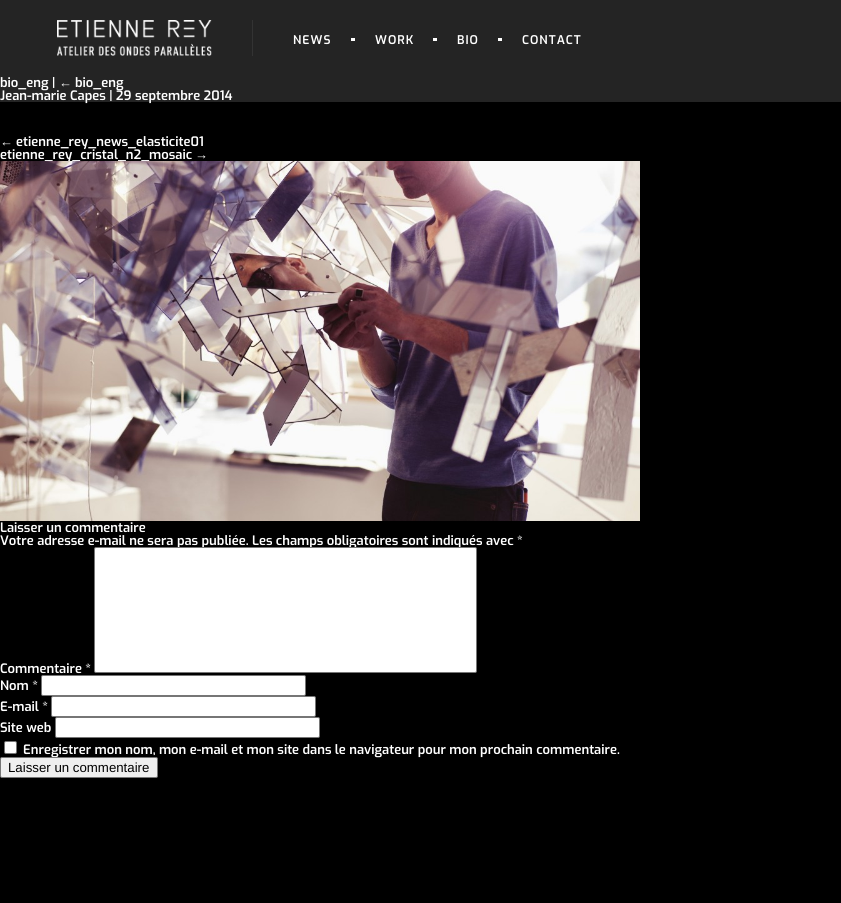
#include <cairo.h>
#include <math.h>
#include <stddef.h>


static void spaced_text(cairo_t *cr, double x, double y, const char *s, double letter, double word) {
    cairo_move_to(cr, x, y);
    while (*s) {
        char ch[5] = {0};
        int n = 0;
        do ch[n++] = *s++; while ((*s & 0xC0) == 0x80);
        cairo_show_text(cr, ch);
        cairo_rel_move_to(cr, letter + word * (*ch == ' '), 0);
    }
}

static void round_rect(cairo_t *cr, double x, double y, double w, double h, double r) {
    cairo_new_sub_path(cr);
    cairo_arc(cr, x + w - r, y + h - r, r, 0, M_PI / 2);
    cairo_arc(cr, x + r, y + h - r, r, M_PI / 2, M_PI);
    cairo_arc(cr, x + r, y + r, r, M_PI, 1.5 * M_PI);
    cairo_arc(cr, x + w - r, y + r, r, 1.5 * M_PI, 2 * M_PI);
    cairo_close_path(cr);
}

static void picture(cairo_t *cr, const char *path, double x, double y, double w, double h) {
    cairo_surface_t *image = cairo_image_surface_create_from_png(path);
    cairo_save(cr);
    cairo_set_source_surface(cr, image, x, y);
    cairo_rectangle(cr, x, y, w, h);
    cairo_fill(cr);
    cairo_restore(cr);
    cairo_surface_destroy(image);
}

int main(void) {
    cairo_surface_t *surface = cairo_image_surface_create(CAIRO_FORMAT_RGB24, 841, 903);
    cairo_t *cr = cairo_create(surface);
    cairo_font_options_t *options = cairo_font_options_create();
    cairo_font_options_set_hint_metrics(options, CAIRO_HINT_METRICS_OFF);
    cairo_font_options_set_hint_style(options, CAIRO_HINT_STYLE_NONE);
    cairo_set_font_options(cr, options);
    cairo_set_miter_limit(cr, 4);
    cairo_set_source_rgb(cr, 0, 0, 0);
    cairo_paint(cr);
    cairo_set_source_rgb(cr, 0.141, 0.141, 0.141);
    cairo_rectangle(cr, 0, 0, 841, 102);
    cairo_fill(cr);
    cairo_set_source_rgb(cr, 0.2, 0.2, 0.2);
    cairo_rectangle(cr, 252, 20, 1, 36);
    cairo_fill(cr);
    picture(cr, "img1.png", 57, 20, 155, 36);
    cairo_set_source_rgb(cr, 1, 1, 1);
    cairo_rectangle(cr, 351, 38, 4, 3);
    cairo_fill(cr);
    cairo_select_font_face(cr, "Exo SemiBold", CAIRO_FONT_SLANT_NORMAL, CAIRO_FONT_WEIGHT_NORMAL);
    cairo_set_font_size(cr, 12);
    spaced_text(cr, 293, 44, "NEWS", 1, 0);
    cairo_rectangle(cr, 433, 38, 4, 3);
    cairo_fill(cr);
    spaced_text(cr, 375, 44, "WORK", 1, 0);
    cairo_rectangle(cr, 498, 38, 4, 3);
    cairo_fill(cr);
    spaced_text(cr, 457, 44, "BIO", 1, 0);
    spaced_text(cr, 522, 44, "CONTACT", 1, 0);
    cairo_set_font_size(cr, 13);
    cairo_move_to(cr, 0, 87);
    cairo_show_text(cr, "bio_eng |");
    cairo_select_font_face(cr, "Liberation Sans", CAIRO_FONT_SLANT_NORMAL, CAIRO_FONT_WEIGHT_BOLD);
    cairo_move_to(cr, 59, 87);
    cairo_show_text(cr, "←");
    cairo_select_font_face(cr, "Exo SemiBold", CAIRO_FONT_SLANT_NORMAL, CAIRO_FONT_WEIGHT_NORMAL);
    cairo_move_to(cr, 75, 87);
    cairo_show_text(cr, "bio_eng");
    cairo_move_to(cr, 0, 100);
    cairo_show_text(cr, "Jean-marie Capes | 29 septembre 2014");
    cairo_select_font_face(cr, "Liberation Sans", CAIRO_FONT_SLANT_NORMAL, CAIRO_FONT_WEIGHT_BOLD);
    cairo_move_to(cr, 0, 146);
    cairo_show_text(cr, "←");
    cairo_select_font_face(cr, "Exo SemiBold", CAIRO_FONT_SLANT_NORMAL, CAIRO_FONT_WEIGHT_NORMAL);
    cairo_move_to(cr, 16, 146);
    cairo_show_text(cr, "etienne_rey_news_elasticite01");
    cairo_move_to(cr, 0, 159);
    cairo_show_text(cr, "etienne_rey_cristal_n2_mosaic");
    cairo_select_font_face(cr, "Liberation Sans", CAIRO_FONT_SLANT_NORMAL, CAIRO_FONT_WEIGHT_BOLD);
    cairo_move_to(cr, 195, 159);
    cairo_show_text(cr, "→");
    picture(cr, "img2.png", 0, 161, 640, 360);
    cairo_select_font_face(cr, "Exo SemiBold", CAIRO_FONT_SLANT_NORMAL, CAIRO_FONT_WEIGHT_NORMAL);
    cairo_move_to(cr, 0, 532);
    cairo_show_text(cr, "Laisser un commentaire");
    cairo_move_to(cr, 0, 545);
    cairo_show_text(cr, "Votre adresse e-mail ne sera pas publiée. Les champs obligatoires sont indiqués avec *");
    cairo_move_to(cr, 0, 673);
    cairo_show_text(cr, "Commentaire *");
    round_rect(cr, 94.5, 547.5, 382, 125, 1.5);
    cairo_fill_preserve(cr);
    cairo_set_source_rgb(cr, 0.463, 0.463, 0.463);
    cairo_set_line_width(cr, 1);
    cairo_stroke(cr);
    cairo_set_source_rgb(cr, 1, 1, 1);
    cairo_move_to(cr, 0, 690);
    cairo_show_text(cr, "Nom *");
    round_rect(cr, 41.5, 675.5, 264, 20, 1.5);
    cairo_fill_preserve(cr);
    cairo_set_source_rgb(cr, 0.463, 0.463, 0.463);
    cairo_stroke(cr);
    cairo_set_source_rgb(cr, 1, 1, 1);
    cairo_move_to(cr, 0, 711);
    cairo_show_text(cr, "E-mail *");
    round_rect(cr, 51.5, 696.5, 264, 20, 1.5);
    cairo_fill_preserve(cr);
    cairo_set_source_rgb(cr, 0.463, 0.463, 0.463);
    cairo_stroke(cr);
    cairo_set_source_rgb(cr, 1, 1, 1);
    cairo_move_to(cr, 0, 732);
    cairo_show_text(cr, "Site web");
    round_rect(cr, 55.5, 717.5, 264, 20, 1.5);
    cairo_fill_preserve(cr);
    cairo_set_source_rgb(cr, 0.463, 0.463, 0.463);
    cairo_stroke(cr);
    cairo_set_source_rgb(cr, 1, 1, 1);
    round_rect(cr, 4.5, 741.5, 12, 12, 1.5);
    cairo_fill_preserve(cr);
    cairo_set_source_rgb(cr, 0.463, 0.463, 0.463);
    cairo_stroke(cr);
    cairo_set_source_rgb(cr, 1, 1, 1);
    cairo_move_to(cr, 23, 754);
    cairo_show_text(cr, "Enregistrer mon nom, mon e-mail et mon site dans le navigateur pour mon prochain commentaire.");
    cairo_set_source_rgb(cr, 0.937, 0.937, 0.937);
    round_rect(cr, 0.5, 757.5, 157, 20, 1.5);
    cairo_fill_preserve(cr);
    cairo_set_source_rgb(cr, 0.463, 0.463, 0.463);
    cairo_stroke(cr);
    cairo_select_font_face(cr, "Liberation Sans", CAIRO_FONT_SLANT_NORMAL, CAIRO_FONT_WEIGHT_NORMAL);
    cairo_set_font_size(cr, 13.25);
    cairo_set_source_rgb(cr, 0, 0, 0);
    cairo_move_to(cr, 8, 772);
    cairo_show_text(cr, "Laisser un commentaire");
    cairo_surface_write_to_png(surface, "page.png");
    cairo_font_options_destroy(options);
    cairo_destroy(cr);
    cairo_surface_destroy(surface);
    return 0;
}
